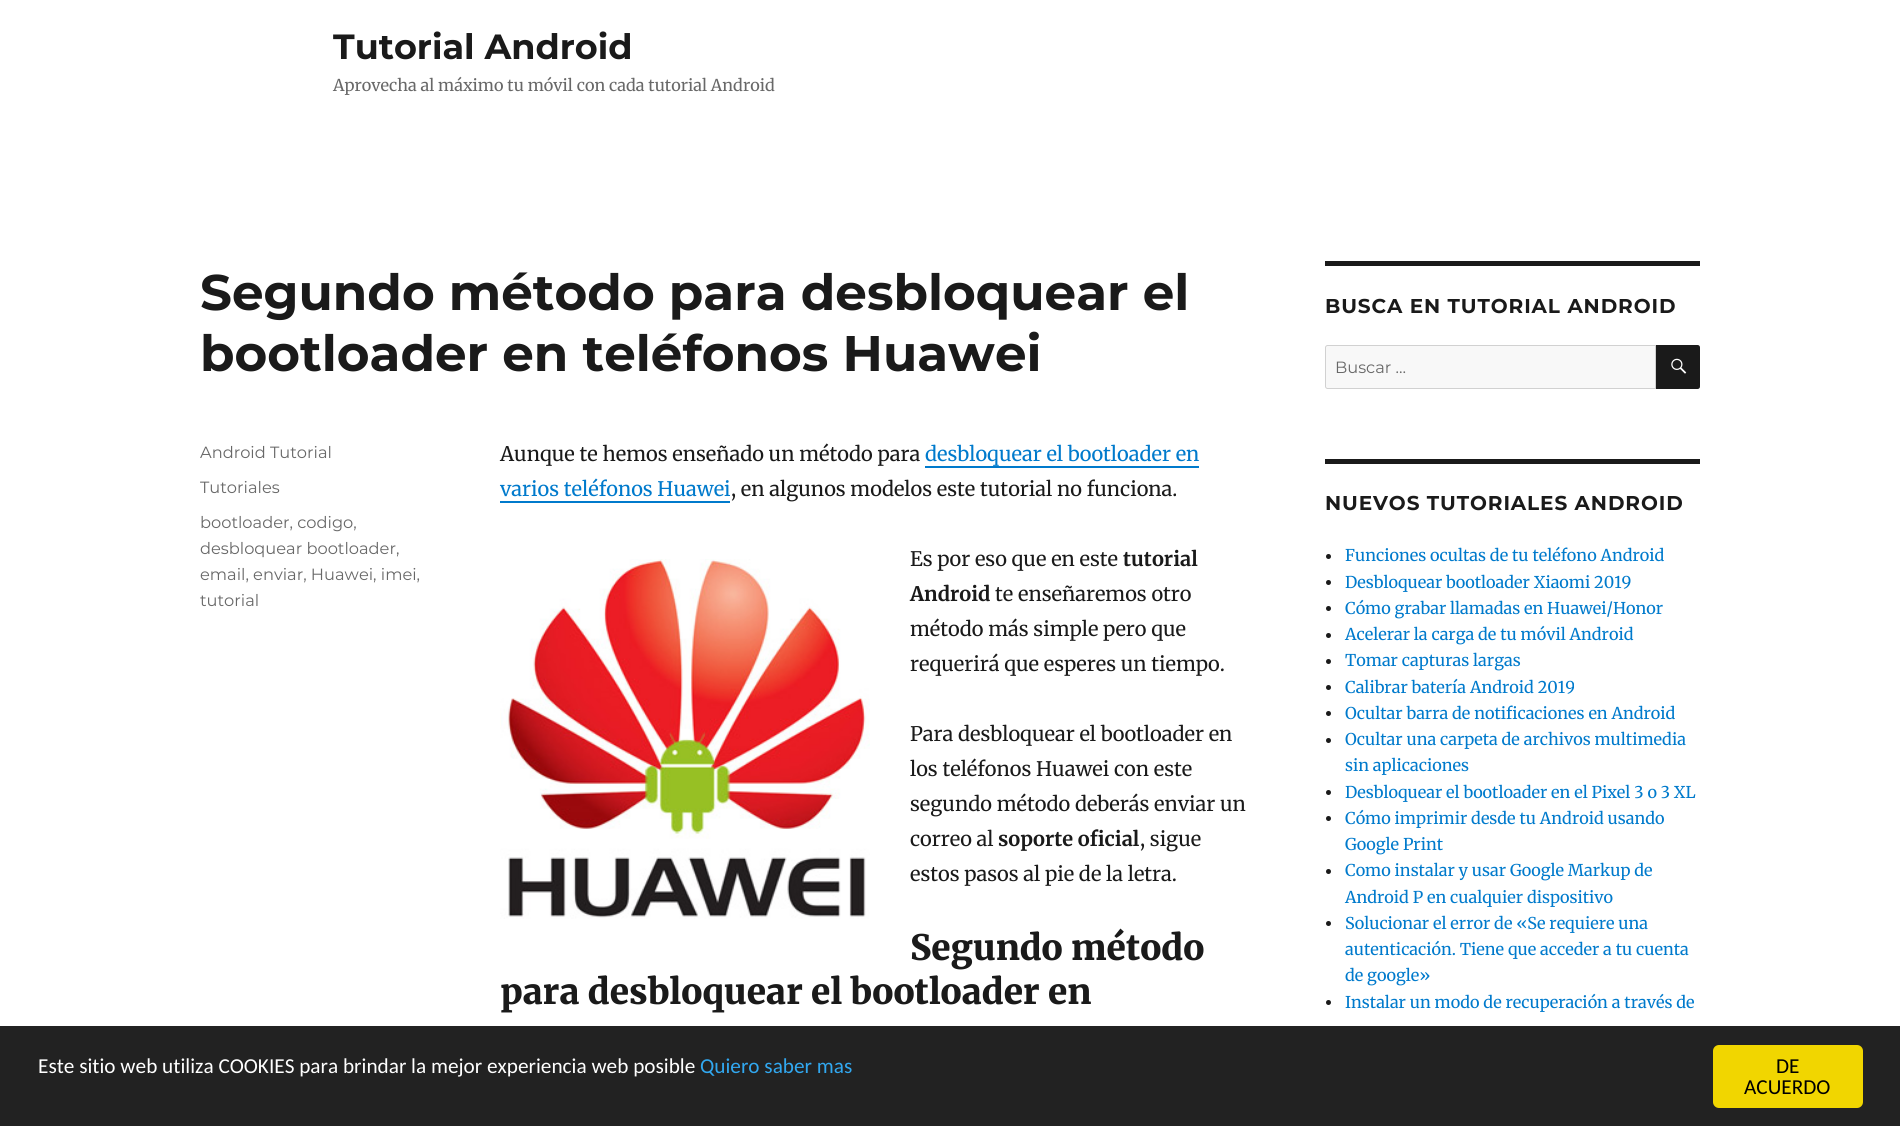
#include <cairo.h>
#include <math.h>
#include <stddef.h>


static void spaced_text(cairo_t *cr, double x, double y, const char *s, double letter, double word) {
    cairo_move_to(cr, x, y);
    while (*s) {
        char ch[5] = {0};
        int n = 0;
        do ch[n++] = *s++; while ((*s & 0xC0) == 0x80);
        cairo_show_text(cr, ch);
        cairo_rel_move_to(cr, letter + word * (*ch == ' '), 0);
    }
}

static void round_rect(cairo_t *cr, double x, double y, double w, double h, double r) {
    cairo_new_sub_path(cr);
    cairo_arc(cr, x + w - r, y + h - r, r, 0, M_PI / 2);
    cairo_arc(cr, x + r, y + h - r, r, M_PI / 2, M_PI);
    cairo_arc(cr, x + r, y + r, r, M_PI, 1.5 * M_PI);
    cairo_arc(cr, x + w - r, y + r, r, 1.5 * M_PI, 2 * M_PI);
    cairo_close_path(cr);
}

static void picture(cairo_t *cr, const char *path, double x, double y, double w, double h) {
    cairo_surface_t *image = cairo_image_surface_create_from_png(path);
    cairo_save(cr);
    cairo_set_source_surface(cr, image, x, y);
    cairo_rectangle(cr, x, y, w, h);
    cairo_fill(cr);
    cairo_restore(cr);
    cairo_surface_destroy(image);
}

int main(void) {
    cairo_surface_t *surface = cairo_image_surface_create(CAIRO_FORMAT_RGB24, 1900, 1126);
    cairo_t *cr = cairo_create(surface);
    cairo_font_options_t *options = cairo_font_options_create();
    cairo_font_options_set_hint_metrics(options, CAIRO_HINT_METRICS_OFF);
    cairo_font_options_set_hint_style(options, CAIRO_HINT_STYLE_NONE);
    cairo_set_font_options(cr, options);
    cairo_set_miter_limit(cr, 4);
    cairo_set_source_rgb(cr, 1, 1, 1);
    cairo_paint(cr);
    cairo_select_font_face(cr, "Montserrat", CAIRO_FONT_SLANT_NORMAL, CAIRO_FONT_WEIGHT_BOLD);
    cairo_set_font_size(cr, 35);
    cairo_set_source_rgb(cr, 0.102, 0.102, 0.102);
    cairo_move_to(cr, 333, 59);
    cairo_show_text(cr, "Tutorial Android");
    cairo_select_font_face(cr, "Merriweather", CAIRO_FONT_SLANT_NORMAL, CAIRO_FONT_WEIGHT_NORMAL);
    cairo_set_font_size(cr, 16.25);
    cairo_set_source_rgb(cr, 0.408, 0.408, 0.408);
    cairo_move_to(cr, 333, 91);
    cairo_show_text(cr, "Aprovecha al máximo tu móvil con cada tutorial Android");
    cairo_select_font_face(cr, "Montserrat", CAIRO_FONT_SLANT_NORMAL, CAIRO_FONT_WEIGHT_BOLD);
    cairo_set_font_size(cr, 50);
    cairo_set_source_rgb(cr, 0.102, 0.102, 0.102);
    cairo_move_to(cr, 200, 310);
    cairo_show_text(cr, "Segundo método para desbloquear el");
    cairo_move_to(cr, 200, 371);
    cairo_show_text(cr, "bootloader en teléfonos Huawei");
    cairo_select_font_face(cr, "Montserrat", CAIRO_FONT_SLANT_NORMAL, CAIRO_FONT_WEIGHT_NORMAL);
    cairo_set_font_size(cr, 16.25);
    cairo_set_source_rgb(cr, 0.408, 0.408, 0.408);
    cairo_move_to(cr, 200, 458);
    cairo_show_text(cr, "Android Tutorial");
    cairo_move_to(cr, 200, 493);
    cairo_show_text(cr, "Tutoriales");
    cairo_move_to(cr, 200, 528);
    cairo_show_text(cr, "bootloader, codigo,");
    cairo_move_to(cr, 200, 554);
    cairo_show_text(cr, "desbloquear bootloader,");
    cairo_move_to(cr, 200, 580);
    cairo_show_text(cr, "email, enviar, Huawei, imei,");
    cairo_move_to(cr, 200, 606);
    cairo_show_text(cr, "tutorial");
    cairo_select_font_face(cr, "Merriweather", CAIRO_FONT_SLANT_NORMAL, CAIRO_FONT_WEIGHT_NORMAL);
    cairo_set_font_size(cr, 20);
    cairo_set_source_rgb(cr, 0.102, 0.102, 0.102);
    cairo_move_to(cr, 500, 461);
    cairo_show_text(cr, "Aunque te hemos enseñado un método para");
    cairo_set_source_rgb(cr, 0, 0.478, 0.8);
    cairo_move_to(cr, 925, 461);
    cairo_show_text(cr, "desbloquear el bootloader en");
    cairo_new_path(cr);
    cairo_move_to(cr, 925, 466);
    cairo_line_to(cr, 925, 468);
    cairo_line_to(cr, 1199, 468);
    cairo_line_to(cr, 1199, 443);
    cairo_line_to(cr, 1199, 466);
    cairo_close_path(cr);
    cairo_fill(cr);
    cairo_move_to(cr, 500, 496);
    cairo_show_text(cr, "varios teléfonos Huawei");
    cairo_rectangle(cr, 500, 501, 230, 2);
    cairo_fill(cr);
    cairo_set_source_rgb(cr, 0.102, 0.102, 0.102);
    cairo_move_to(cr, 731, 496);
    cairo_show_text(cr, ", en algunos modelos este tutorial no funciona.");
    picture(cr, "img1.png", 500, 559, 370, 360);
    cairo_move_to(cr, 910, 566);
    cairo_show_text(cr, "Es por eso que en este");
    cairo_select_font_face(cr, "Merriweather", CAIRO_FONT_SLANT_NORMAL, CAIRO_FONT_WEIGHT_BOLD);
    cairo_move_to(cr, 1123, 566);
    cairo_show_text(cr, "tutorial");
    cairo_move_to(cr, 910, 601);
    cairo_show_text(cr, "Android");
    cairo_select_font_face(cr, "Merriweather", CAIRO_FONT_SLANT_NORMAL, CAIRO_FONT_WEIGHT_NORMAL);
    cairo_move_to(cr, 995, 601);
    cairo_show_text(cr, "te enseñaremos otro");
    cairo_move_to(cr, 910, 636);
    cairo_show_text(cr, "método más simple pero que");
    cairo_move_to(cr, 910, 671);
    cairo_show_text(cr, "requerirá que esperes un tiempo.");
    cairo_move_to(cr, 910, 741);
    cairo_show_text(cr, "Para desbloquear el bootloader en");
    cairo_move_to(cr, 910, 776);
    cairo_show_text(cr, "los teléfonos Huawei con este");
    cairo_move_to(cr, 910, 811);
    cairo_show_text(cr, "segundo método deberás enviar un");
    cairo_move_to(cr, 910, 846);
    cairo_show_text(cr, "correo al");
    cairo_select_font_face(cr, "Merriweather", CAIRO_FONT_SLANT_NORMAL, CAIRO_FONT_WEIGHT_BOLD);
    cairo_move_to(cr, 998, 846);
    cairo_show_text(cr, "soporte oficial");
    cairo_select_font_face(cr, "Merriweather", CAIRO_FONT_SLANT_NORMAL, CAIRO_FONT_WEIGHT_NORMAL);
    cairo_move_to(cr, 1140, 846);
    cairo_show_text(cr, ", sigue");
    cairo_move_to(cr, 910, 881);
    cairo_show_text(cr, "estos pasos al pie de la letra.");
    cairo_select_font_face(cr, "Merriweather Black", CAIRO_FONT_SLANT_NORMAL, CAIRO_FONT_WEIGHT_NORMAL);
    cairo_set_font_size(cr, 35);
    cairo_move_to(cr, 910, 960);
    cairo_show_text(cr, "Segundo método");
    cairo_move_to(cr, 500, 1004);
    cairo_show_text(cr, "para desbloquear el bootloader en");
    cairo_rectangle(cr, 1325, 261, 375, 5);
    cairo_fill(cr);
    cairo_select_font_face(cr, "Montserrat", CAIRO_FONT_SLANT_NORMAL, CAIRO_FONT_WEIGHT_BOLD);
    cairo_set_font_size(cr, 20);
    spaced_text(cr, 1325, 313, "BUSCA EN TUTORIAL ANDROID", 0.9, 0);
    cairo_set_source_rgb(cr, 0.969, 0.969, 0.969);
    cairo_new_path(cr);
    cairo_move_to(cr, 1327.5, 345.5);
    cairo_line_to(cr, 1655.5, 345.5);
    cairo_line_to(cr, 1655.5, 388.5);
    cairo_line_to(cr, 1327.5, 388.5);
    cairo_curve_to(cr, 1326.5, 388.5, 1325.5, 387.5, 1325.5, 386.5);
    cairo_line_to(cr, 1325.5, 347.5);
    cairo_curve_to(cr, 1325.5, 346.5, 1326.5, 345.5, 1327.5, 345.5);
    cairo_close_path(cr);
    cairo_fill_preserve(cr);
    cairo_set_source_rgb(cr, 0.82, 0.82, 0.82);
    cairo_set_line_width(cr, 1);
    cairo_stroke(cr);
    cairo_select_font_face(cr, "Montserrat", CAIRO_FONT_SLANT_NORMAL, CAIRO_FONT_WEIGHT_NORMAL);
    cairo_set_font_size(cr, 16.25);
    cairo_set_source_rgb(cr, 0.408, 0.408, 0.408);
    cairo_move_to(cr, 1335, 373);
    cairo_show_text(cr, "Buscar …");
    cairo_set_source_rgb(cr, 0.102, 0.102, 0.102);
    cairo_new_path(cr);
    cairo_move_to(cr, 1656, 345);
    cairo_line_to(cr, 1697.5, 345);
    cairo_curve_to(cr, 1699, 345, 1700, 346, 1700, 347.5);
    cairo_line_to(cr, 1700, 386.5);
    cairo_curve_to(cr, 1700, 388, 1699, 389, 1697.5, 389);
    cairo_line_to(cr, 1656, 389);
    cairo_close_path(cr);
    cairo_fill(cr);
    picture(cr, "img2.png", 1671, 358, 16, 16);
    cairo_rectangle(cr, 1325, 459, 375, 5);
    cairo_fill(cr);
    cairo_select_font_face(cr, "Montserrat", CAIRO_FONT_SLANT_NORMAL, CAIRO_FONT_WEIGHT_BOLD);
    cairo_set_font_size(cr, 20);
    spaced_text(cr, 1325, 510, "NUEVOS TUTORIALES ANDROID", 0.9, 0);
    cairo_new_path(cr);
    cairo_arc(cr, 1328.5, 556.5, 2.5, 0, 2 * M_PI);
    cairo_fill(cr);
    cairo_select_font_face(cr, "Merriweather", CAIRO_FONT_SLANT_NORMAL, CAIRO_FONT_WEIGHT_NORMAL);
    cairo_set_font_size(cr, 16.25);
    cairo_set_source_rgb(cr, 0, 0.478, 0.8);
    cairo_move_to(cr, 1345, 561);
    cairo_show_text(cr, "Funciones ocultas de tu teléfono Android");
    cairo_set_source_rgb(cr, 0.102, 0.102, 0.102);
    cairo_new_path(cr);
    cairo_arc(cr, 1328.5, 582.5, 2.5, 0, 2 * M_PI);
    cairo_fill(cr);
    cairo_set_source_rgb(cr, 0, 0.478, 0.8);
    cairo_move_to(cr, 1345, 588);
    cairo_show_text(cr, "Desbloquear bootloader Xiaomi 2019");
    cairo_set_source_rgb(cr, 0.102, 0.102, 0.102);
    cairo_new_path(cr);
    cairo_arc(cr, 1328.5, 608.5, 2.5, 0, 2 * M_PI);
    cairo_fill(cr);
    cairo_set_source_rgb(cr, 0, 0.478, 0.8);
    cairo_move_to(cr, 1345, 614);
    cairo_show_text(cr, "Cómo grabar llamadas en Huawei/Honor");
    cairo_set_source_rgb(cr, 0.102, 0.102, 0.102);
    cairo_new_path(cr);
    cairo_arc(cr, 1328.5, 635.5, 2.5, 0, 2 * M_PI);
    cairo_fill(cr);
    cairo_set_source_rgb(cr, 0, 0.478, 0.8);
    cairo_move_to(cr, 1345, 640);
    cairo_show_text(cr, "Acelerar la carga de tu móvil Android");
    cairo_set_source_rgb(cr, 0.102, 0.102, 0.102);
    cairo_new_path(cr);
    cairo_arc(cr, 1328.5, 661.5, 2.5, 0, 2 * M_PI);
    cairo_fill(cr);
    cairo_set_source_rgb(cr, 0, 0.478, 0.8);
    cairo_move_to(cr, 1345, 666);
    cairo_show_text(cr, "Tomar capturas largas");
    cairo_set_source_rgb(cr, 0.102, 0.102, 0.102);
    cairo_new_path(cr);
    cairo_arc(cr, 1328.5, 687.5, 2.5, 0, 2 * M_PI);
    cairo_fill(cr);
    cairo_set_source_rgb(cr, 0, 0.478, 0.8);
    cairo_move_to(cr, 1345, 693);
    cairo_show_text(cr, "Calibrar batería Android 2019");
    cairo_set_source_rgb(cr, 0.102, 0.102, 0.102);
    cairo_new_path(cr);
    cairo_arc(cr, 1328.5, 713.5, 2.5, 0, 2 * M_PI);
    cairo_fill(cr);
    cairo_set_source_rgb(cr, 0, 0.478, 0.8);
    cairo_move_to(cr, 1345, 719);
    cairo_show_text(cr, "Ocultar barra de notificaciones en Android");
    cairo_set_source_rgb(cr, 0.102, 0.102, 0.102);
    cairo_new_path(cr);
    cairo_arc(cr, 1328.5, 740.5, 2.5, 0, 2 * M_PI);
    cairo_fill(cr);
    cairo_set_source_rgb(cr, 0, 0.478, 0.8);
    cairo_move_to(cr, 1345, 745);
    cairo_show_text(cr, "Ocultar una carpeta de archivos multimedia");
    cairo_move_to(cr, 1345, 771);
    cairo_show_text(cr, "sin aplicaciones");
    cairo_set_source_rgb(cr, 0.102, 0.102, 0.102);
    cairo_new_path(cr);
    cairo_arc(cr, 1328.5, 792.5, 2.5, 0, 2 * M_PI);
    cairo_fill(cr);
    cairo_set_source_rgb(cr, 0, 0.478, 0.8);
    cairo_move_to(cr, 1345, 798);
    cairo_show_text(cr, "Desbloquear el bootloader en el Pixel 3 o 3 XL");
    cairo_set_source_rgb(cr, 0.102, 0.102, 0.102);
    cairo_new_path(cr);
    cairo_arc(cr, 1328.5, 818.5, 2.5, 0, 2 * M_PI);
    cairo_fill(cr);
    cairo_set_source_rgb(cr, 0, 0.478, 0.8);
    cairo_move_to(cr, 1345, 824);
    cairo_show_text(cr, "Cómo imprimir desde tu Android usando");
    cairo_move_to(cr, 1345, 850);
    cairo_show_text(cr, "Google Print");
    cairo_set_source_rgb(cr, 0.102, 0.102, 0.102);
    cairo_new_path(cr);
    cairo_arc(cr, 1328.5, 871.5, 2.5, 0, 2 * M_PI);
    cairo_fill(cr);
    cairo_set_source_rgb(cr, 0, 0.478, 0.8);
    cairo_move_to(cr, 1345, 876);
    cairo_show_text(cr, "Como instalar y usar Google Markup de");
    cairo_move_to(cr, 1345, 903);
    cairo_show_text(cr, "Android P en cualquier dispositivo");
    cairo_set_source_rgb(cr, 0.102, 0.102, 0.102);
    cairo_new_path(cr);
    cairo_arc(cr, 1328.5, 923.5, 2.5, 0, 2 * M_PI);
    cairo_fill(cr);
    cairo_set_source_rgb(cr, 0, 0.478, 0.8);
    cairo_move_to(cr, 1345, 929);
    cairo_show_text(cr, "Solucionar el error de «Se requiere una");
    cairo_move_to(cr, 1345, 955);
    cairo_show_text(cr, "autenticación. Tiene que acceder a tu cuenta");
    cairo_move_to(cr, 1345, 981);
    cairo_show_text(cr, "de google»");
    cairo_set_source_rgb(cr, 0.102, 0.102, 0.102);
    cairo_new_path(cr);
    cairo_arc(cr, 1328.5, 1002.5, 2.5, 0, 2 * M_PI);
    cairo_fill(cr);
    cairo_set_source_rgb(cr, 0, 0.478, 0.8);
    cairo_move_to(cr, 1345, 1008);
    cairo_show_text(cr, "Instalar un modo de recuperación a través de");
    cairo_set_source_rgb(cr, 0.133, 0.133, 0.133);
    cairo_rectangle(cr, 0, 1026, 1900, 100);
    cairo_fill(cr);
    cairo_select_font_face(cr, "Carlito", CAIRO_FONT_SLANT_NORMAL, CAIRO_FONT_WEIGHT_NORMAL);
    cairo_set_font_size(cr, 21.25);
    cairo_set_source_rgb(cr, 1, 1, 1);
    cairo_move_to(cr, 38, 1073);
    cairo_show_text(cr, "Este sitio web utiliza COOKIES para brindar la mejor experiencia web posible");
    cairo_set_source_rgb(cr, 0.192, 0.659, 0.941);
    cairo_move_to(cr, 700, 1073);
    cairo_show_text(cr, "Quiero saber mas");
    cairo_set_source_rgb(cr, 0.945, 0.839, 0);
    round_rect(cr, 1713, 1045, 150, 63, 6);
    cairo_fill(cr);
    cairo_set_source_rgb(cr, 0, 0, 0);
    cairo_move_to(cr, 1776, 1073);
    cairo_show_text(cr, "DE");
    cairo_move_to(cr, 1744, 1094);
    cairo_show_text(cr, "ACUERDO");
    cairo_surface_write_to_png(surface, "page.png");
    cairo_font_options_destroy(options);
    cairo_destroy(cr);
    cairo_surface_destroy(surface);
    return 0;
}
